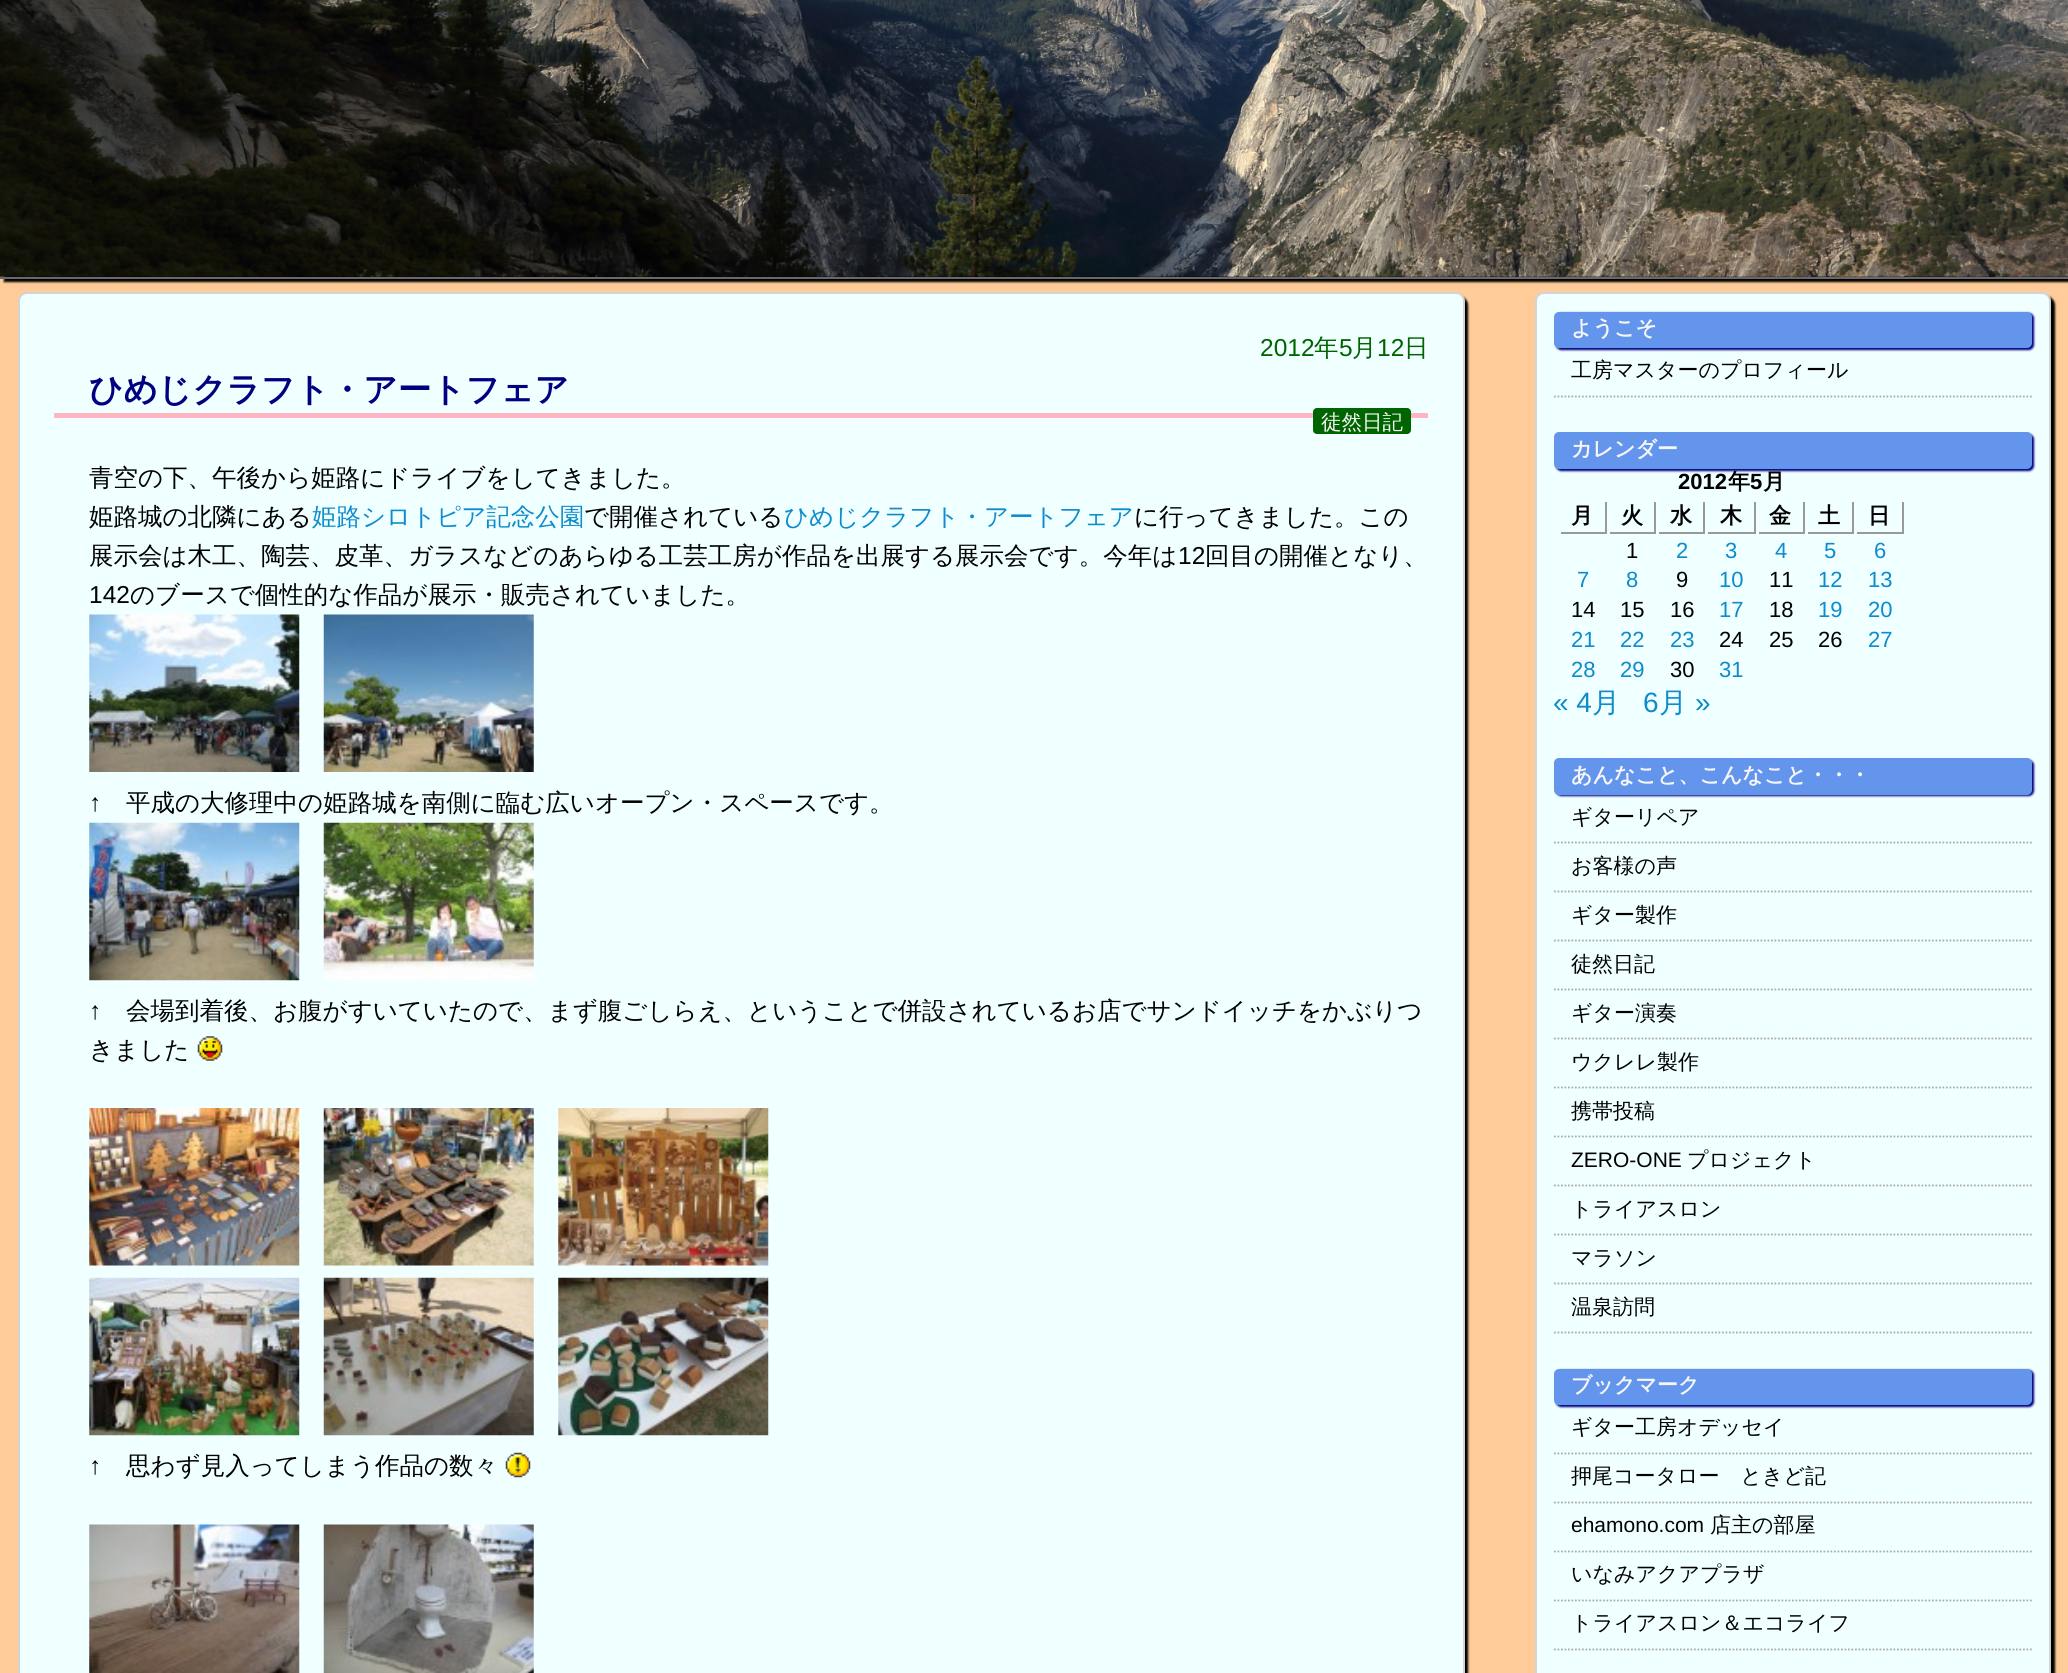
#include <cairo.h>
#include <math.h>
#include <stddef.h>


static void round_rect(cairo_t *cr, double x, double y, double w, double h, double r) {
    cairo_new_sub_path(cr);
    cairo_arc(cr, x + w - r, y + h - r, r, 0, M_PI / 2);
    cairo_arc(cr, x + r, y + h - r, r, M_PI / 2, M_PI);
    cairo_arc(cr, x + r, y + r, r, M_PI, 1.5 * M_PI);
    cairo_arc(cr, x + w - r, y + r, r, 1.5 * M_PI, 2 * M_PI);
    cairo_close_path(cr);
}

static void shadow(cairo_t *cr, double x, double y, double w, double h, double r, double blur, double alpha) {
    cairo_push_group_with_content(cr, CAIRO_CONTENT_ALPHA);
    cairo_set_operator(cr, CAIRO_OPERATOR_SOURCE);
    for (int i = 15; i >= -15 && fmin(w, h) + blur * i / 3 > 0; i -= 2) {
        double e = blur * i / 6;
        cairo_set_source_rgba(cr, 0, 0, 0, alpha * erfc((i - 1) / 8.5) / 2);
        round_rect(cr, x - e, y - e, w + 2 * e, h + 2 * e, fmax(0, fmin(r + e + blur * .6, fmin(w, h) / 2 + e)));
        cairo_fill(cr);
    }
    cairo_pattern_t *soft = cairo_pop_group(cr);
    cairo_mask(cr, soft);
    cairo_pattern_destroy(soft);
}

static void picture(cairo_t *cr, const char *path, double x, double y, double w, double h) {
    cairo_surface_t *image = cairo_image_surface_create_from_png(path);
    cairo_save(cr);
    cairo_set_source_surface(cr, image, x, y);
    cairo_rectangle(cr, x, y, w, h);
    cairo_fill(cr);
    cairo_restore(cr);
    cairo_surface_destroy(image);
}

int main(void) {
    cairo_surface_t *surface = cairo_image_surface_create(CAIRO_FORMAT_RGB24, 2068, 1673);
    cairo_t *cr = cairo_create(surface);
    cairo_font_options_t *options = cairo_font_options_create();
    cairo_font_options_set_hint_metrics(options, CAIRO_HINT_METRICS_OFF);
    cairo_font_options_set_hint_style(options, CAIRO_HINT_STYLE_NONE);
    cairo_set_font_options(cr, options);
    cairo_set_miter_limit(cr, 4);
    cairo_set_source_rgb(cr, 1, 0.8, 0.6);
    cairo_paint(cr);
    cairo_set_source_rgb(cr, 0, 0, 0);
    shadow(cr, 4, -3, 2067, 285, 0, 1, 1);
    picture(cr, "img1.png", 0, 0, 2068, 277);
    cairo_set_source_rgb(cr, 0.412, 0.412, 0.412);
    cairo_rectangle(cr, 0, 277, 2068, 2);
    cairo_fill(cr);
    cairo_set_source_rgb(cr, 0, 0, 0);
    shadow(cr, 21, 296, 1447, 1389, 9, 1, 1);
    cairo_set_source_rgb(cr, 0.941, 1, 1);
    round_rect(cr, 19, 293, 1445, 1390, 8);
    cairo_fill_preserve(cr);
    cairo_set_source_rgb(cr, 0.827, 0.827, 0.827);
    cairo_stroke(cr);
    cairo_select_font_face(cr, "Liberation Sans", CAIRO_FONT_SLANT_NORMAL, CAIRO_FONT_WEIGHT_NORMAL);
    cairo_set_font_size(cr, 24.5);
    cairo_set_source_rgb(cr, 0, 0.392, 0);
    cairo_move_to(cr, 1260, 356);
    cairo_show_text(cr, "2012");
    cairo_select_font_face(cr, "WenQuanYi Zen Hei Medium", CAIRO_FONT_SLANT_NORMAL, CAIRO_FONT_WEIGHT_NORMAL);
    cairo_move_to(cr, 1314, 356);
    cairo_show_text(cr, "年");
    cairo_select_font_face(cr, "Liberation Sans", CAIRO_FONT_SLANT_NORMAL, CAIRO_FONT_WEIGHT_NORMAL);
    cairo_move_to(cr, 1339, 356);
    cairo_show_text(cr, "5");
    cairo_select_font_face(cr, "WenQuanYi Zen Hei Medium", CAIRO_FONT_SLANT_NORMAL, CAIRO_FONT_WEIGHT_NORMAL);
    cairo_move_to(cr, 1352, 356);
    cairo_show_text(cr, "月");
    cairo_select_font_face(cr, "Liberation Sans", CAIRO_FONT_SLANT_NORMAL, CAIRO_FONT_WEIGHT_NORMAL);
    cairo_move_to(cr, 1377, 356);
    cairo_show_text(cr, "12");
    cairo_select_font_face(cr, "WenQuanYi Zen Hei Medium", CAIRO_FONT_SLANT_NORMAL, CAIRO_FONT_WEIGHT_NORMAL);
    cairo_move_to(cr, 1404, 356);
    cairo_show_text(cr, "日");
    cairo_set_source_rgb(cr, 1, 0.714, 0.757);
    cairo_rectangle(cr, 54, 413, 1374, 5);
    cairo_fill(cr);
    cairo_select_font_face(cr, "WenQuanYi Zen Hei", CAIRO_FONT_SLANT_NORMAL, CAIRO_FONT_WEIGHT_BOLD);
    cairo_set_font_size(cr, 33.6);
    cairo_set_source_rgb(cr, 0, 0, 0.502);
    cairo_move_to(cr, 89, 401);
    cairo_show_text(cr, "ひめじクラフト・アートフェア");
    cairo_set_source_rgb(cr, 0, 0.392, 0);
    round_rect(cr, 1313, 408, 98, 26, 4);
    cairo_fill(cr);
    cairo_select_font_face(cr, "WenQuanYi Zen Hei Medium", CAIRO_FONT_SLANT_NORMAL, CAIRO_FONT_WEIGHT_NORMAL);
    cairo_set_font_size(cr, 20.5);
    cairo_set_source_rgb(cr, 0.961, 0.961, 0.961);
    cairo_move_to(cr, 1321, 429);
    cairo_show_text(cr, "徒然日記");
    cairo_set_font_size(cr, 24.5);
    cairo_set_source_rgb(cr, 0, 0, 0);
    cairo_move_to(cr, 89, 486);
    cairo_show_text(cr, "青空の下、午後から姫路にドライブをしてきました。");
    cairo_move_to(cr, 89, 525);
    cairo_show_text(cr, "姫路城の北隣にある");
    cairo_set_source_rgb(cr, 0.047, 0.545, 0.804);
    cairo_move_to(cr, 312, 525);
    cairo_show_text(cr, "姫路シロトピア記念公園");
    cairo_set_source_rgb(cr, 0, 0, 0);
    cairo_move_to(cr, 584, 525);
    cairo_show_text(cr, "で開催されている");
    cairo_set_source_rgb(cr, 0.047, 0.545, 0.804);
    cairo_move_to(cr, 784, 525);
    cairo_show_text(cr, "ひめじクラフト・アートフェア");
    cairo_set_source_rgb(cr, 0, 0, 0);
    cairo_move_to(cr, 1134, 525);
    cairo_show_text(cr, "に行ってきました。この");
    cairo_move_to(cr, 89, 564);
    cairo_show_text(cr, "展示会は木工、陶芸、皮革、ガラスなどのあらゆる工芸工房が作品を出展する展示会です。今年は");
    cairo_select_font_face(cr, "Liberation Sans", CAIRO_FONT_SLANT_NORMAL, CAIRO_FONT_WEIGHT_NORMAL);
    cairo_move_to(cr, 1178, 564);
    cairo_show_text(cr, "12");
    cairo_select_font_face(cr, "WenQuanYi Zen Hei Medium", CAIRO_FONT_SLANT_NORMAL, CAIRO_FONT_WEIGHT_NORMAL);
    cairo_move_to(cr, 1205, 564);
    cairo_show_text(cr, "回目の開催となり、");
    cairo_select_font_face(cr, "Liberation Sans", CAIRO_FONT_SLANT_NORMAL, CAIRO_FONT_WEIGHT_NORMAL);
    cairo_move_to(cr, 89, 603);
    cairo_show_text(cr, "142");
    cairo_select_font_face(cr, "WenQuanYi Zen Hei Medium", CAIRO_FONT_SLANT_NORMAL, CAIRO_FONT_WEIGHT_NORMAL);
    cairo_move_to(cr, 130, 603);
    cairo_show_text(cr, "のブースで個性的な作品が展示・販売されていました。");
    picture(cr, "img2.png", 89, 614, 211, 158);
    picture(cr, "img3.png", 323, 614, 211, 158);
    cairo_select_font_face(cr, "Liberation Sans", CAIRO_FONT_SLANT_NORMAL, CAIRO_FONT_WEIGHT_NORMAL);
    cairo_move_to(cr, 89, 811);
    cairo_show_text(cr, "↑");
    cairo_select_font_face(cr, "WenQuanYi Zen Hei Medium", CAIRO_FONT_SLANT_NORMAL, CAIRO_FONT_WEIGHT_NORMAL);
    cairo_move_to(cr, 126, 811);
    cairo_show_text(cr, "平成の大修理中の姫路城を南側に臨む広いオープン・スペースです。");
    picture(cr, "img4.png", 89, 822, 211, 159);
    picture(cr, "img5.png", 323, 822, 211, 158);
    cairo_select_font_face(cr, "Liberation Sans", CAIRO_FONT_SLANT_NORMAL, CAIRO_FONT_WEIGHT_NORMAL);
    cairo_move_to(cr, 89, 1019);
    cairo_show_text(cr, "↑");
    cairo_select_font_face(cr, "WenQuanYi Zen Hei Medium", CAIRO_FONT_SLANT_NORMAL, CAIRO_FONT_WEIGHT_NORMAL);
    cairo_move_to(cr, 126, 1019);
    cairo_show_text(cr, "会場到着後、お腹がすいていたので、まず腹ごしらえ、ということで併設されているお店でサンドイッチをかぶりつ");
    cairo_move_to(cr, 89, 1058);
    cairo_show_text(cr, "きました");
    picture(cr, "img6.png", 197, 1036, 26, 25);
    picture(cr, "img7.png", 89, 1108, 211, 158);
    picture(cr, "img8.png", 323, 1108, 211, 158);
    picture(cr, "img9.png", 558, 1108, 211, 158);
    picture(cr, "img10.png", 89, 1277, 211, 159);
    picture(cr, "img11.png", 323, 1277, 211, 159);
    picture(cr, "img12.png", 558, 1277, 211, 159);
    cairo_select_font_face(cr, "Liberation Sans", CAIRO_FONT_SLANT_NORMAL, CAIRO_FONT_WEIGHT_NORMAL);
    cairo_move_to(cr, 89, 1474);
    cairo_show_text(cr, "↑");
    cairo_select_font_face(cr, "WenQuanYi Zen Hei Medium", CAIRO_FONT_SLANT_NORMAL, CAIRO_FONT_WEIGHT_NORMAL);
    cairo_move_to(cr, 126, 1474);
    cairo_show_text(cr, "思わず見入ってしまう作品の数々");
    picture(cr, "img13.png", 505, 1452, 26, 26);
    picture(cr, "img14.png", 89, 1524, 211, 149);
    picture(cr, "img15.png", 323, 1524, 211, 149);
    cairo_set_source_rgb(cr, 0, 0, 0);
    shadow(cr, 1538, 296, 517, 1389, 9, 1, 1);
    cairo_set_source_rgb(cr, 0.941, 1, 1);
    round_rect(cr, 1536, 293, 514, 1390, 8);
    cairo_fill_preserve(cr);
    cairo_set_source_rgb(cr, 0.827, 0.827, 0.827);
    cairo_stroke(cr);
    cairo_set_source_rgb(cr, 0, 0, 0.502);
    shadow(cr, 1556, 313, 478, 37, 5, 1, 1);
    cairo_set_source_rgb(cr, 0.392, 0.584, 0.929);
    round_rect(cr, 1554, 312, 478, 36, 5);
    cairo_fill(cr);
    cairo_select_font_face(cr, "WenQuanYi Zen Hei", CAIRO_FONT_SLANT_NORMAL, CAIRO_FONT_WEIGHT_BOLD);
    cairo_set_font_size(cr, 21);
    cairo_set_source_rgb(cr, 0.961, 0.961, 0.961);
    cairo_move_to(cr, 1571, 335);
    cairo_show_text(cr, "ようこそ");
    cairo_new_path(cr);
    cairo_move_to(cr, 1554, 396.5);
    cairo_line_to(cr, 2032, 396.5);
    cairo_set_source_rgb(cr, 0.667, 0.667, 0.667);
    cairo_set_line_width(cr, 1.8);
    cairo_set_dash(cr, (double[]){1.75, 1.75}, 2, 0);
    cairo_stroke(cr);
    cairo_select_font_face(cr, "WenQuanYi Zen Hei Medium", CAIRO_FONT_SLANT_NORMAL, CAIRO_FONT_WEIGHT_NORMAL);
    cairo_set_source_rgb(cr, 0, 0, 0);
    cairo_move_to(cr, 1571, 377);
    cairo_show_text(cr, "工房マスターのプロフィール");
    cairo_set_source_rgb(cr, 0, 0, 0.502);
    shadow(cr, 1556, 434, 478, 37, 5, 1, 1);
    cairo_set_source_rgb(cr, 0.392, 0.584, 0.929);
    round_rect(cr, 1554, 432, 478, 37, 5);
    cairo_fill(cr);
    cairo_select_font_face(cr, "WenQuanYi Zen Hei", CAIRO_FONT_SLANT_NORMAL, CAIRO_FONT_WEIGHT_BOLD);
    cairo_set_source_rgb(cr, 0.961, 0.961, 0.961);
    cairo_move_to(cr, 1571, 456);
    cairo_show_text(cr, "カレンダー");
    cairo_select_font_face(cr, "Liberation Sans", CAIRO_FONT_SLANT_NORMAL, CAIRO_FONT_WEIGHT_BOLD);
    cairo_set_font_size(cr, 22);
    cairo_set_source_rgb(cr, 0, 0, 0);
    cairo_move_to(cr, 1678, 489);
    cairo_show_text(cr, "2012");
    cairo_select_font_face(cr, "WenQuanYi Zen Hei", CAIRO_FONT_SLANT_NORMAL, CAIRO_FONT_WEIGHT_BOLD);
    cairo_move_to(cr, 1728, 489);
    cairo_show_text(cr, "年");
    cairo_select_font_face(cr, "Liberation Sans", CAIRO_FONT_SLANT_NORMAL, CAIRO_FONT_WEIGHT_BOLD);
    cairo_move_to(cr, 1750, 489);
    cairo_show_text(cr, "5");
    cairo_select_font_face(cr, "WenQuanYi Zen Hei", CAIRO_FONT_SLANT_NORMAL, CAIRO_FONT_WEIGHT_BOLD);
    cairo_move_to(cr, 1763, 489);
    cairo_show_text(cr, "月");
    cairo_set_source_rgb(cr, 0.6, 0.6, 0.6);
    cairo_rectangle(cr, 1605, 502, 2, 32);
    cairo_fill(cr);
    cairo_rectangle(cr, 1561, 532, 46, 2);
    cairo_fill(cr);
    cairo_set_source_rgb(cr, 0, 0, 0);
    cairo_move_to(cr, 1571, 523);
    cairo_show_text(cr, "月");
    cairo_set_source_rgb(cr, 0.6, 0.6, 0.6);
    cairo_rectangle(cr, 1654, 502, 2, 32);
    cairo_fill(cr);
    cairo_rectangle(cr, 1610, 532, 46, 2);
    cairo_fill(cr);
    cairo_set_source_rgb(cr, 0, 0, 0);
    cairo_move_to(cr, 1621, 523);
    cairo_show_text(cr, "火");
    cairo_set_source_rgb(cr, 0.6, 0.6, 0.6);
    cairo_rectangle(cr, 1703, 502, 2, 32);
    cairo_fill(cr);
    cairo_rectangle(cr, 1659, 532, 46, 2);
    cairo_fill(cr);
    cairo_set_source_rgb(cr, 0, 0, 0);
    cairo_move_to(cr, 1670, 523);
    cairo_show_text(cr, "水");
    cairo_set_source_rgb(cr, 0.6, 0.6, 0.6);
    cairo_rectangle(cr, 1754, 502, 2, 32);
    cairo_fill(cr);
    cairo_rectangle(cr, 1708, 532, 47, 2);
    cairo_fill(cr);
    cairo_set_source_rgb(cr, 0, 0, 0);
    cairo_move_to(cr, 1720, 523);
    cairo_show_text(cr, "木");
    cairo_set_source_rgb(cr, 0.6, 0.6, 0.6);
    cairo_rectangle(cr, 1803, 502, 2, 32);
    cairo_fill(cr);
    cairo_rectangle(cr, 1759, 532, 45, 2);
    cairo_fill(cr);
    cairo_set_source_rgb(cr, 0, 0, 0);
    cairo_move_to(cr, 1769, 523);
    cairo_show_text(cr, "金");
    cairo_set_source_rgb(cr, 0.6, 0.6, 0.6);
    cairo_rectangle(cr, 1852, 502, 2, 32);
    cairo_fill(cr);
    cairo_rectangle(cr, 1808, 532, 45, 2);
    cairo_fill(cr);
    cairo_set_source_rgb(cr, 0, 0, 0);
    cairo_move_to(cr, 1818, 523);
    cairo_show_text(cr, "土");
    cairo_set_source_rgb(cr, 0.6, 0.6, 0.6);
    cairo_rectangle(cr, 1902, 502, 2, 32);
    cairo_fill(cr);
    cairo_rectangle(cr, 1857, 532, 47, 2);
    cairo_fill(cr);
    cairo_set_source_rgb(cr, 0, 0, 0);
    cairo_move_to(cr, 1868, 523);
    cairo_show_text(cr, "日");
    cairo_select_font_face(cr, "Liberation Sans", CAIRO_FONT_SLANT_NORMAL, CAIRO_FONT_WEIGHT_NORMAL);
    cairo_move_to(cr, 1626, 558);
    cairo_show_text(cr, "1");
    cairo_set_source_rgb(cr, 0.047, 0.545, 0.804);
    cairo_move_to(cr, 1676, 558);
    cairo_show_text(cr, "2");
    cairo_move_to(cr, 1725, 558);
    cairo_show_text(cr, "3");
    cairo_move_to(cr, 1775, 558);
    cairo_show_text(cr, "4");
    cairo_move_to(cr, 1824, 558);
    cairo_show_text(cr, "5");
    cairo_move_to(cr, 1874, 558);
    cairo_show_text(cr, "6");
    cairo_move_to(cr, 1577, 587);
    cairo_show_text(cr, "7");
    cairo_move_to(cr, 1626, 587);
    cairo_show_text(cr, "8");
    cairo_set_source_rgb(cr, 0, 0, 0);
    cairo_move_to(cr, 1676, 587);
    cairo_show_text(cr, "9");
    cairo_set_source_rgb(cr, 0.047, 0.545, 0.804);
    cairo_move_to(cr, 1719, 587);
    cairo_show_text(cr, "10");
    cairo_set_source_rgb(cr, 0, 0, 0);
    cairo_move_to(cr, 1769, 587);
    cairo_show_text(cr, "11");
    cairo_set_source_rgb(cr, 0.047, 0.545, 0.804);
    cairo_move_to(cr, 1818, 587);
    cairo_show_text(cr, "12");
    cairo_move_to(cr, 1868, 587);
    cairo_show_text(cr, "13");
    cairo_set_source_rgb(cr, 0, 0, 0);
    cairo_move_to(cr, 1571, 617);
    cairo_show_text(cr, "14");
    cairo_move_to(cr, 1620, 617);
    cairo_show_text(cr, "15");
    cairo_move_to(cr, 1670, 617);
    cairo_show_text(cr, "16");
    cairo_set_source_rgb(cr, 0.047, 0.545, 0.804);
    cairo_move_to(cr, 1719, 617);
    cairo_show_text(cr, "17");
    cairo_set_source_rgb(cr, 0, 0, 0);
    cairo_move_to(cr, 1769, 617);
    cairo_show_text(cr, "18");
    cairo_set_source_rgb(cr, 0.047, 0.545, 0.804);
    cairo_move_to(cr, 1818, 617);
    cairo_show_text(cr, "19");
    cairo_move_to(cr, 1868, 617);
    cairo_show_text(cr, "20");
    cairo_move_to(cr, 1571, 647);
    cairo_show_text(cr, "21");
    cairo_move_to(cr, 1620, 647);
    cairo_show_text(cr, "22");
    cairo_move_to(cr, 1670, 647);
    cairo_show_text(cr, "23");
    cairo_set_source_rgb(cr, 0, 0, 0);
    cairo_move_to(cr, 1719, 647);
    cairo_show_text(cr, "24");
    cairo_move_to(cr, 1769, 647);
    cairo_show_text(cr, "25");
    cairo_move_to(cr, 1818, 647);
    cairo_show_text(cr, "26");
    cairo_set_source_rgb(cr, 0.047, 0.545, 0.804);
    cairo_move_to(cr, 1868, 647);
    cairo_show_text(cr, "27");
    cairo_move_to(cr, 1571, 677);
    cairo_show_text(cr, "28");
    cairo_move_to(cr, 1620, 677);
    cairo_show_text(cr, "29");
    cairo_set_source_rgb(cr, 0, 0, 0);
    cairo_move_to(cr, 1670, 677);
    cairo_show_text(cr, "30");
    cairo_set_source_rgb(cr, 0.047, 0.545, 0.804);
    cairo_move_to(cr, 1719, 677);
    cairo_show_text(cr, "31");
    cairo_set_font_size(cr, 28);
    cairo_move_to(cr, 1553, 712);
    cairo_show_text(cr, "« 4");
    cairo_select_font_face(cr, "WenQuanYi Zen Hei Medium", CAIRO_FONT_SLANT_NORMAL, CAIRO_FONT_WEIGHT_NORMAL);
    cairo_move_to(cr, 1592, 712);
    cairo_show_text(cr, "月");
    cairo_select_font_face(cr, "Liberation Sans", CAIRO_FONT_SLANT_NORMAL, CAIRO_FONT_WEIGHT_NORMAL);
    cairo_move_to(cr, 1643, 712);
    cairo_show_text(cr, "6");
    cairo_select_font_face(cr, "WenQuanYi Zen Hei Medium", CAIRO_FONT_SLANT_NORMAL, CAIRO_FONT_WEIGHT_NORMAL);
    cairo_move_to(cr, 1659, 712);
    cairo_show_text(cr, "月");
    cairo_select_font_face(cr, "Liberation Sans", CAIRO_FONT_SLANT_NORMAL, CAIRO_FONT_WEIGHT_NORMAL);
    cairo_move_to(cr, 1695, 712);
    cairo_show_text(cr, "»");
    cairo_set_source_rgb(cr, 0, 0, 0.502);
    shadow(cr, 1556, 760, 478, 36, 5, 1, 1);
    cairo_set_source_rgb(cr, 0.392, 0.584, 0.929);
    round_rect(cr, 1554, 758, 478, 37, 5);
    cairo_fill(cr);
    cairo_select_font_face(cr, "WenQuanYi Zen Hei", CAIRO_FONT_SLANT_NORMAL, CAIRO_FONT_WEIGHT_BOLD);
    cairo_set_font_size(cr, 21);
    cairo_set_source_rgb(cr, 0.961, 0.961, 0.961);
    cairo_move_to(cr, 1571, 782);
    cairo_show_text(cr, "あんなこと、こんなこと・・・");
    cairo_new_path(cr);
    cairo_move_to(cr, 1554, 842.5);
    cairo_line_to(cr, 2032, 842.5);
    cairo_set_source_rgb(cr, 0.667, 0.667, 0.667);
    cairo_stroke(cr);
    cairo_select_font_face(cr, "WenQuanYi Zen Hei Medium", CAIRO_FONT_SLANT_NORMAL, CAIRO_FONT_WEIGHT_NORMAL);
    cairo_set_source_rgb(cr, 0, 0, 0);
    cairo_move_to(cr, 1571, 824);
    cairo_show_text(cr, "ギターリペア");
    cairo_new_path(cr);
    cairo_move_to(cr, 1554, 891.5);
    cairo_line_to(cr, 2032, 891.5);
    cairo_set_source_rgb(cr, 0.667, 0.667, 0.667);
    cairo_stroke(cr);
    cairo_set_source_rgb(cr, 0, 0, 0);
    cairo_move_to(cr, 1571, 873);
    cairo_show_text(cr, "お客様の声");
    cairo_new_path(cr);
    cairo_move_to(cr, 1554, 940.5);
    cairo_line_to(cr, 2032, 940.5);
    cairo_set_source_rgb(cr, 0.667, 0.667, 0.667);
    cairo_stroke(cr);
    cairo_set_source_rgb(cr, 0, 0, 0);
    cairo_move_to(cr, 1571, 922);
    cairo_show_text(cr, "ギター製作");
    cairo_new_path(cr);
    cairo_move_to(cr, 1554, 989.5);
    cairo_line_to(cr, 2032, 989.5);
    cairo_set_source_rgb(cr, 0.667, 0.667, 0.667);
    cairo_stroke(cr);
    cairo_set_source_rgb(cr, 0, 0, 0);
    cairo_move_to(cr, 1571, 971);
    cairo_show_text(cr, "徒然日記");
    cairo_new_path(cr);
    cairo_move_to(cr, 1554, 1038.5);
    cairo_line_to(cr, 2032, 1038.5);
    cairo_set_source_rgb(cr, 0.667, 0.667, 0.667);
    cairo_stroke(cr);
    cairo_set_source_rgb(cr, 0, 0, 0);
    cairo_move_to(cr, 1571, 1020);
    cairo_show_text(cr, "ギター演奏");
    cairo_new_path(cr);
    cairo_move_to(cr, 1554, 1087.5);
    cairo_line_to(cr, 2032, 1087.5);
    cairo_set_source_rgb(cr, 0.667, 0.667, 0.667);
    cairo_stroke(cr);
    cairo_set_source_rgb(cr, 0, 0, 0);
    cairo_move_to(cr, 1571, 1069);
    cairo_show_text(cr, "ウクレレ製作");
    cairo_new_path(cr);
    cairo_move_to(cr, 1554, 1136.5);
    cairo_line_to(cr, 2032, 1136.5);
    cairo_set_source_rgb(cr, 0.667, 0.667, 0.667);
    cairo_stroke(cr);
    cairo_set_source_rgb(cr, 0, 0, 0);
    cairo_move_to(cr, 1571, 1118);
    cairo_show_text(cr, "携帯投稿");
    cairo_new_path(cr);
    cairo_move_to(cr, 1554, 1185.5);
    cairo_line_to(cr, 2032, 1185.5);
    cairo_set_source_rgb(cr, 0.667, 0.667, 0.667);
    cairo_stroke(cr);
    cairo_select_font_face(cr, "Liberation Sans", CAIRO_FONT_SLANT_NORMAL, CAIRO_FONT_WEIGHT_NORMAL);
    cairo_set_source_rgb(cr, 0, 0, 0);
    cairo_move_to(cr, 1571, 1167);
    cairo_show_text(cr, "ZERO-ONE");
    cairo_select_font_face(cr, "WenQuanYi Zen Hei Medium", CAIRO_FONT_SLANT_NORMAL, CAIRO_FONT_WEIGHT_NORMAL);
    cairo_move_to(cr, 1687, 1167);
    cairo_show_text(cr, "プロジェクト");
    cairo_new_path(cr);
    cairo_move_to(cr, 1554, 1234.5);
    cairo_line_to(cr, 2032, 1234.5);
    cairo_set_source_rgb(cr, 0.667, 0.667, 0.667);
    cairo_stroke(cr);
    cairo_set_source_rgb(cr, 0, 0, 0);
    cairo_move_to(cr, 1571, 1216);
    cairo_show_text(cr, "トライアスロン");
    cairo_new_path(cr);
    cairo_move_to(cr, 1554, 1283.5);
    cairo_line_to(cr, 2032, 1283.5);
    cairo_set_source_rgb(cr, 0.667, 0.667, 0.667);
    cairo_stroke(cr);
    cairo_set_source_rgb(cr, 0, 0, 0);
    cairo_move_to(cr, 1571, 1265);
    cairo_show_text(cr, "マラソン");
    cairo_new_path(cr);
    cairo_move_to(cr, 1554, 1332.5);
    cairo_line_to(cr, 2032, 1332.5);
    cairo_set_source_rgb(cr, 0.667, 0.667, 0.667);
    cairo_stroke(cr);
    cairo_set_source_rgb(cr, 0, 0, 0);
    cairo_move_to(cr, 1571, 1314);
    cairo_show_text(cr, "温泉訪問");
    cairo_set_source_rgb(cr, 0, 0, 0.502);
    shadow(cr, 1556, 1370, 478, 37, 5, 1, 1);
    cairo_set_source_rgb(cr, 0.392, 0.584, 0.929);
    round_rect(cr, 1554, 1369, 478, 36, 5);
    cairo_fill(cr);
    cairo_select_font_face(cr, "WenQuanYi Zen Hei", CAIRO_FONT_SLANT_NORMAL, CAIRO_FONT_WEIGHT_BOLD);
    cairo_set_source_rgb(cr, 0.961, 0.961, 0.961);
    cairo_move_to(cr, 1571, 1392);
    cairo_show_text(cr, "ブックマーク");
    cairo_new_path(cr);
    cairo_move_to(cr, 1554, 1453.5);
    cairo_line_to(cr, 2032, 1453.5);
    cairo_set_source_rgb(cr, 0.667, 0.667, 0.667);
    cairo_stroke(cr);
    cairo_select_font_face(cr, "WenQuanYi Zen Hei Medium", CAIRO_FONT_SLANT_NORMAL, CAIRO_FONT_WEIGHT_NORMAL);
    cairo_set_source_rgb(cr, 0, 0, 0);
    cairo_move_to(cr, 1571, 1434);
    cairo_show_text(cr, "ギター工房オデッセイ");
    cairo_new_path(cr);
    cairo_move_to(cr, 1554, 1502.5);
    cairo_line_to(cr, 2032, 1502.5);
    cairo_set_source_rgb(cr, 0.667, 0.667, 0.667);
    cairo_stroke(cr);
    cairo_set_source_rgb(cr, 0, 0, 0);
    cairo_move_to(cr, 1571, 1483);
    cairo_show_text(cr, "押尾コータロー　ときど記");
    cairo_new_path(cr);
    cairo_move_to(cr, 1554, 1551.5);
    cairo_line_to(cr, 2032, 1551.5);
    cairo_set_source_rgb(cr, 0.667, 0.667, 0.667);
    cairo_stroke(cr);
    cairo_select_font_face(cr, "Liberation Sans", CAIRO_FONT_SLANT_NORMAL, CAIRO_FONT_WEIGHT_NORMAL);
    cairo_set_source_rgb(cr, 0, 0, 0);
    cairo_move_to(cr, 1571, 1532);
    cairo_show_text(cr, "ehamono.com");
    cairo_select_font_face(cr, "WenQuanYi Zen Hei Medium", CAIRO_FONT_SLANT_NORMAL, CAIRO_FONT_WEIGHT_NORMAL);
    cairo_move_to(cr, 1710, 1532);
    cairo_show_text(cr, "店主の部屋");
    cairo_new_path(cr);
    cairo_move_to(cr, 1554, 1600.5);
    cairo_line_to(cr, 2032, 1600.5);
    cairo_set_source_rgb(cr, 0.667, 0.667, 0.667);
    cairo_stroke(cr);
    cairo_set_source_rgb(cr, 0, 0, 0);
    cairo_move_to(cr, 1571, 1581);
    cairo_show_text(cr, "いなみアクアプラザ");
    cairo_new_path(cr);
    cairo_move_to(cr, 1554, 1649.5);
    cairo_line_to(cr, 2032, 1649.5);
    cairo_set_source_rgb(cr, 0.667, 0.667, 0.667);
    cairo_stroke(cr);
    cairo_set_source_rgb(cr, 0, 0, 0);
    cairo_move_to(cr, 1571, 1630);
    cairo_show_text(cr, "トライアスロン＆エコライフ");
    cairo_surface_write_to_png(surface, "page.png");
    cairo_font_options_destroy(options);
    cairo_destroy(cr);
    cairo_surface_destroy(surface);
    return 0;
}
